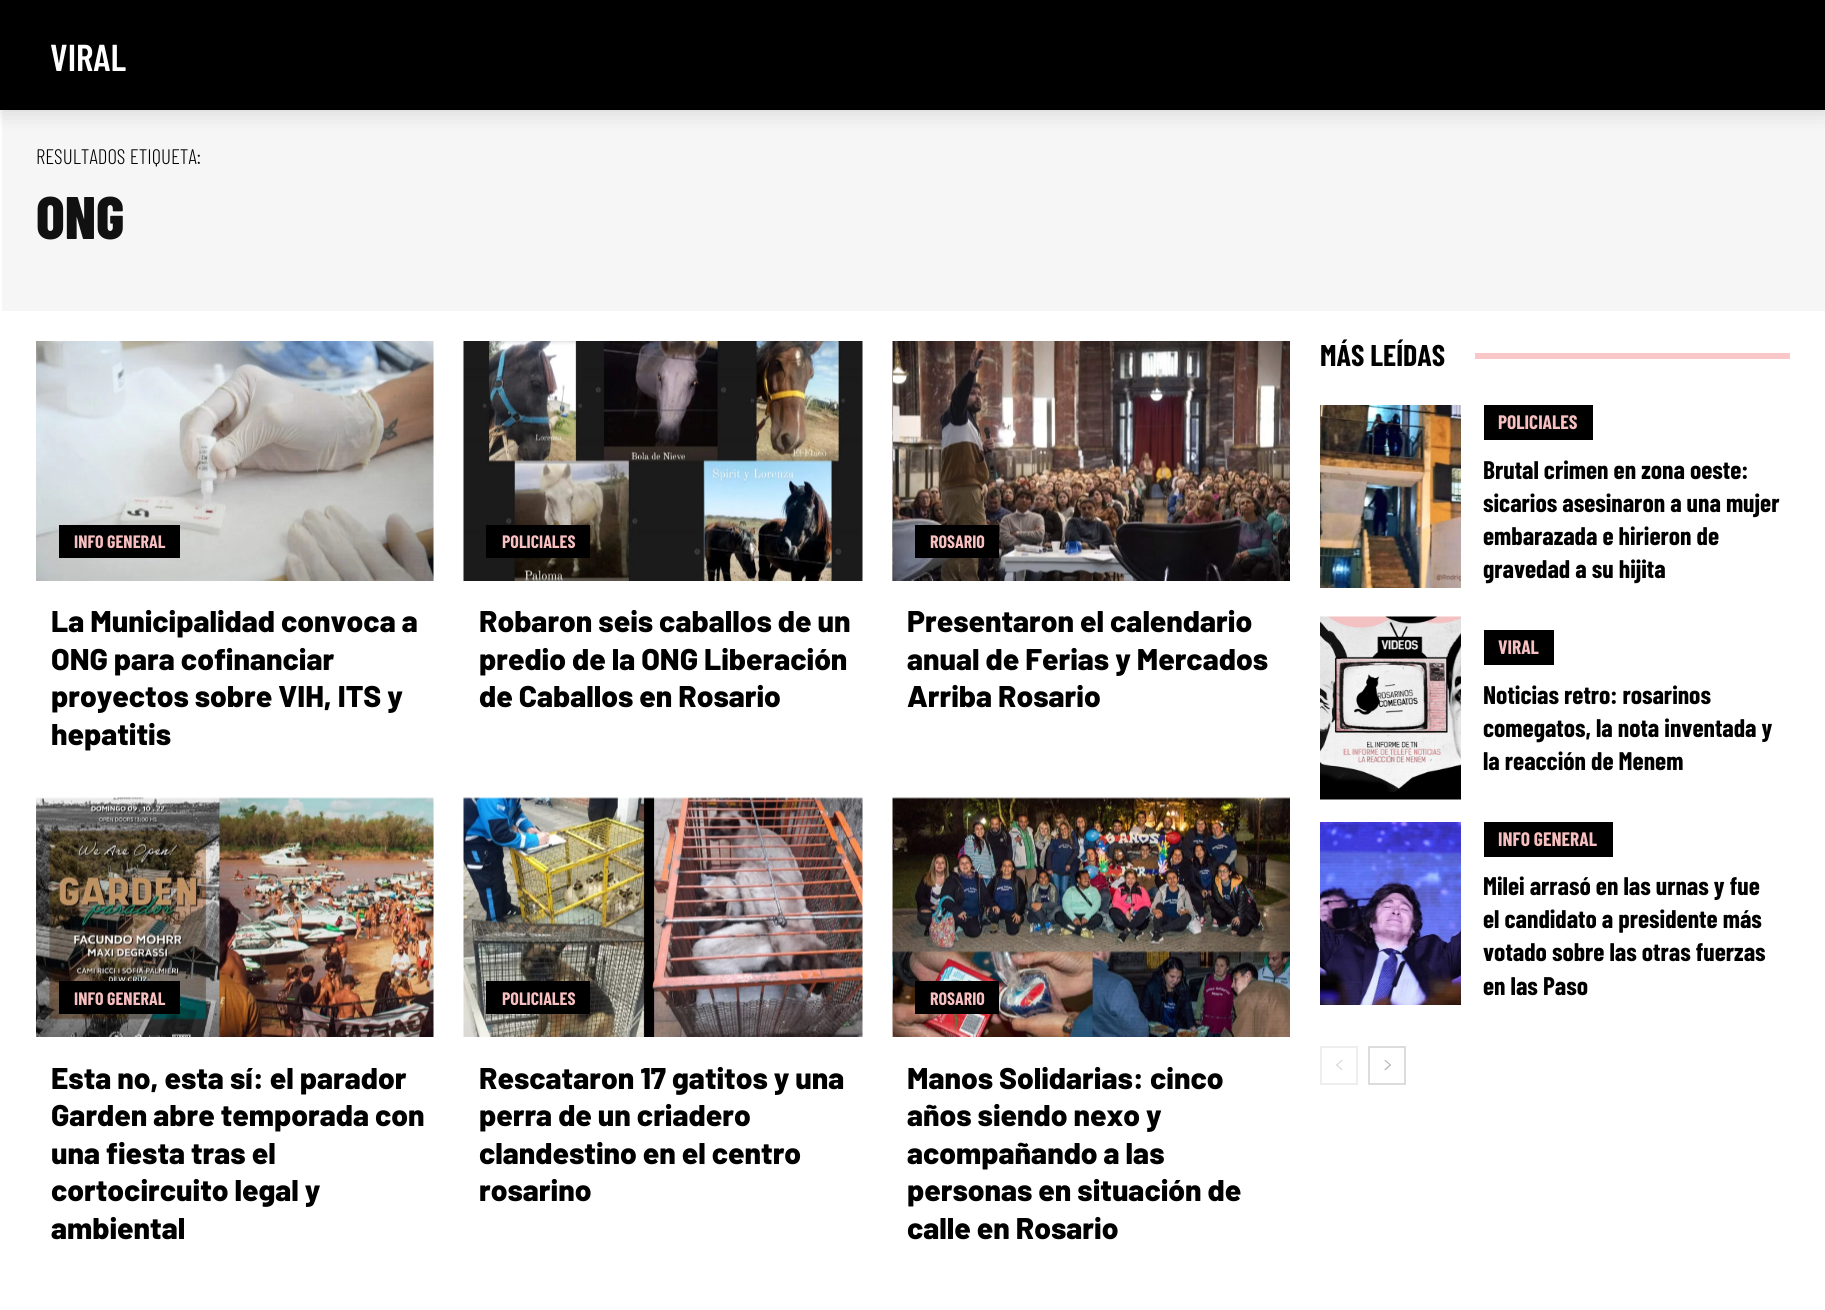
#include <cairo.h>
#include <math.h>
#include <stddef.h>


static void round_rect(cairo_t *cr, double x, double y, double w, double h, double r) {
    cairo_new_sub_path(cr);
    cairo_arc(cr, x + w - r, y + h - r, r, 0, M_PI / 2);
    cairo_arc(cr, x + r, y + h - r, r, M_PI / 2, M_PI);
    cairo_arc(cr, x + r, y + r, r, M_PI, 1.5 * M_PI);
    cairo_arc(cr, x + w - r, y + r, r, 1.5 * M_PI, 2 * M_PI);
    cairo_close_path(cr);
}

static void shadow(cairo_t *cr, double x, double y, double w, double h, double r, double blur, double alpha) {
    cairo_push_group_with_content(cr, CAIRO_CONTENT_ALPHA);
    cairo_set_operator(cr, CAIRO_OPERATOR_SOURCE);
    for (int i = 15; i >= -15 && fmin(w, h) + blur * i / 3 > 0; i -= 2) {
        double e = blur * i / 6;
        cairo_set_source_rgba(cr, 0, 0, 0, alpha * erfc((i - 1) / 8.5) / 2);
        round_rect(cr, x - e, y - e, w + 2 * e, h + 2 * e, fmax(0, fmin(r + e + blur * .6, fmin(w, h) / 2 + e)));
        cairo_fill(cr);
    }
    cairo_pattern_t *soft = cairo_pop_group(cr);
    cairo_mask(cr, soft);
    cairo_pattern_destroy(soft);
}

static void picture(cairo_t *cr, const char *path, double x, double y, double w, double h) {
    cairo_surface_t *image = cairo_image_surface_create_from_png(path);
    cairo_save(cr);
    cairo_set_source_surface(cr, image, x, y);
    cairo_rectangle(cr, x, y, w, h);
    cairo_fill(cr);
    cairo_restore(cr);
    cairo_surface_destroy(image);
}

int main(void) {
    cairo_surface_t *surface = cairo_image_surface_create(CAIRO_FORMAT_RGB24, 1825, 1310);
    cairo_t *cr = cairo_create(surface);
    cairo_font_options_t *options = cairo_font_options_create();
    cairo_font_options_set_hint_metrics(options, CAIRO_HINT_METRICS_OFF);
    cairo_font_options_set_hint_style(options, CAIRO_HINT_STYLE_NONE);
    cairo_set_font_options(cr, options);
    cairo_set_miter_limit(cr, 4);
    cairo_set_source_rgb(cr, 1, 1, 1);
    cairo_paint(cr);
    cairo_set_source_rgb(cr, 0.961, 0.961, 0.961);
    cairo_rectangle(cr, 2, 110, 1823, 201);
    cairo_fill(cr);
    cairo_set_source_rgb(cr, 0, 0, 0);
    shadow(cr, 0, -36, 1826, 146, 0, 12, 0.16);
    cairo_set_source_rgb(cr, 0, 0, 0);
    cairo_rectangle(cr, 0, 0, 1825, 110);
    cairo_fill(cr);
    cairo_select_font_face(cr, "Barlow Condensed SemiBold", CAIRO_FONT_SLANT_NORMAL, CAIRO_FONT_WEIGHT_NORMAL);
    cairo_set_font_size(cr, 37.5);
    cairo_set_source_rgb(cr, 1, 1, 1);
    cairo_move_to(cr, 50, 71);
    cairo_show_text(cr, "VIRAL");
    cairo_select_font_face(cr, "Barlow Condensed Light", CAIRO_FONT_SLANT_NORMAL, CAIRO_FONT_WEIGHT_NORMAL);
    cairo_set_font_size(cr, 21);
    cairo_set_source_rgb(cr, 0, 0, 0);
    cairo_move_to(cr, 36, 164);
    cairo_show_text(cr, "RESULTADOS ETIQUETA:");
    cairo_select_font_face(cr, "Barlow Condensed ExtraBold", CAIRO_FONT_SLANT_NORMAL, CAIRO_FONT_WEIGHT_NORMAL);
    cairo_set_font_size(cr, 60);
    cairo_set_source_rgb(cr, 0.067, 0.067, 0.067);
    cairo_move_to(cr, 36, 239);
    cairo_show_text(cr, "ONG");
    picture(cr, "img1.png", 36, 341, 398, 240);
    cairo_set_source_rgb(cr, 0, 0, 0);
    cairo_rectangle(cr, 59, 525, 121, 33);
    cairo_fill(cr);
    cairo_select_font_face(cr, "Barlow Condensed", CAIRO_FONT_SLANT_NORMAL, CAIRO_FONT_WEIGHT_BOLD);
    cairo_set_font_size(cr, 18);
    cairo_set_source_rgb(cr, 0.969, 0.749, 0.757);
    cairo_move_to(cr, 74, 548);
    cairo_show_text(cr, "INFO GENERAL");
    cairo_select_font_face(cr, "Barlow ExtraBold", CAIRO_FONT_SLANT_NORMAL, CAIRO_FONT_WEIGHT_NORMAL);
    cairo_set_font_size(cr, 30);
    cairo_set_source_rgb(cr, 0, 0, 0);
    cairo_move_to(cr, 51, 632);
    cairo_show_text(cr, "La Municipalidad convoca a");
    cairo_move_to(cr, 51, 670);
    cairo_show_text(cr, "ONG para cofinanciar");
    cairo_move_to(cr, 51, 707);
    cairo_show_text(cr, "proyectos sobre VIH, ITS y");
    cairo_move_to(cr, 51, 745);
    cairo_show_text(cr, "hepatitis");
    picture(cr, "img2.png", 463, 341, 400, 240);
    cairo_rectangle(cr, 486, 525, 104, 33);
    cairo_fill(cr);
    cairo_select_font_face(cr, "Barlow Condensed", CAIRO_FONT_SLANT_NORMAL, CAIRO_FONT_WEIGHT_BOLD);
    cairo_set_font_size(cr, 18);
    cairo_set_source_rgb(cr, 0.969, 0.749, 0.757);
    cairo_move_to(cr, 502, 548);
    cairo_show_text(cr, "POLICIALES");
    cairo_select_font_face(cr, "Barlow ExtraBold", CAIRO_FONT_SLANT_NORMAL, CAIRO_FONT_WEIGHT_NORMAL);
    cairo_set_font_size(cr, 30);
    cairo_set_source_rgb(cr, 0, 0, 0);
    cairo_move_to(cr, 479, 632);
    cairo_show_text(cr, "Robaron seis caballos de un");
    cairo_move_to(cr, 479, 670);
    cairo_show_text(cr, "predio de la ONG Liberación");
    cairo_move_to(cr, 479, 707);
    cairo_show_text(cr, "de Caballos en Rosario");
    picture(cr, "img3.png", 892, 341, 398, 240);
    cairo_rectangle(cr, 915, 525, 84, 33);
    cairo_fill(cr);
    cairo_select_font_face(cr, "Barlow Condensed", CAIRO_FONT_SLANT_NORMAL, CAIRO_FONT_WEIGHT_BOLD);
    cairo_set_font_size(cr, 18);
    cairo_set_source_rgb(cr, 0.969, 0.749, 0.757);
    cairo_move_to(cr, 930, 548);
    cairo_show_text(cr, "ROSARIO");
    cairo_select_font_face(cr, "Barlow ExtraBold", CAIRO_FONT_SLANT_NORMAL, CAIRO_FONT_WEIGHT_NORMAL);
    cairo_set_font_size(cr, 30);
    cairo_set_source_rgb(cr, 0, 0, 0);
    cairo_move_to(cr, 907, 632);
    cairo_show_text(cr, "Presentaron el calendario");
    cairo_move_to(cr, 907, 670);
    cairo_show_text(cr, "anual de Ferias y Mercados");
    cairo_move_to(cr, 907, 707);
    cairo_show_text(cr, "Arriba Rosario");
    picture(cr, "img4.png", 36, 797, 398, 240);
    cairo_rectangle(cr, 59, 981, 121, 33);
    cairo_fill(cr);
    cairo_select_font_face(cr, "Barlow Condensed", CAIRO_FONT_SLANT_NORMAL, CAIRO_FONT_WEIGHT_BOLD);
    cairo_set_font_size(cr, 18);
    cairo_set_source_rgb(cr, 0.969, 0.749, 0.757);
    cairo_move_to(cr, 74, 1005);
    cairo_show_text(cr, "INFO GENERAL");
    cairo_select_font_face(cr, "Barlow ExtraBold", CAIRO_FONT_SLANT_NORMAL, CAIRO_FONT_WEIGHT_NORMAL);
    cairo_set_font_size(cr, 30);
    cairo_set_source_rgb(cr, 0, 0, 0);
    cairo_move_to(cr, 51, 1089);
    cairo_show_text(cr, "Esta no, esta sí: el parador");
    cairo_move_to(cr, 51, 1126);
    cairo_show_text(cr, "Garden abre temporada con");
    cairo_move_to(cr, 51, 1164);
    cairo_show_text(cr, "una fiesta tras el");
    cairo_move_to(cr, 51, 1201);
    cairo_show_text(cr, "cortocircuito legal y");
    cairo_move_to(cr, 51, 1239);
    cairo_show_text(cr, "ambiental");
    picture(cr, "img5.png", 463, 797, 400, 240);
    cairo_rectangle(cr, 486, 981, 104, 33);
    cairo_fill(cr);
    cairo_select_font_face(cr, "Barlow Condensed", CAIRO_FONT_SLANT_NORMAL, CAIRO_FONT_WEIGHT_BOLD);
    cairo_set_font_size(cr, 18);
    cairo_set_source_rgb(cr, 0.969, 0.749, 0.757);
    cairo_move_to(cr, 502, 1005);
    cairo_show_text(cr, "POLICIALES");
    cairo_select_font_face(cr, "Barlow ExtraBold", CAIRO_FONT_SLANT_NORMAL, CAIRO_FONT_WEIGHT_NORMAL);
    cairo_set_font_size(cr, 30);
    cairo_set_source_rgb(cr, 0, 0, 0);
    cairo_move_to(cr, 479, 1089);
    cairo_show_text(cr, "Rescataron 17 gatitos y una");
    cairo_move_to(cr, 479, 1126);
    cairo_show_text(cr, "perra de un criadero");
    cairo_move_to(cr, 479, 1164);
    cairo_show_text(cr, "clandestino en el centro");
    cairo_move_to(cr, 479, 1201);
    cairo_show_text(cr, "rosarino");
    picture(cr, "img6.png", 892, 797, 398, 240);
    cairo_rectangle(cr, 915, 981, 84, 33);
    cairo_fill(cr);
    cairo_select_font_face(cr, "Barlow Condensed", CAIRO_FONT_SLANT_NORMAL, CAIRO_FONT_WEIGHT_BOLD);
    cairo_set_font_size(cr, 18);
    cairo_set_source_rgb(cr, 0.969, 0.749, 0.757);
    cairo_move_to(cr, 930, 1005);
    cairo_show_text(cr, "ROSARIO");
    cairo_select_font_face(cr, "Barlow ExtraBold", CAIRO_FONT_SLANT_NORMAL, CAIRO_FONT_WEIGHT_NORMAL);
    cairo_set_font_size(cr, 30);
    cairo_set_source_rgb(cr, 0, 0, 0);
    cairo_move_to(cr, 907, 1089);
    cairo_show_text(cr, "Manos Solidarias: cinco");
    cairo_move_to(cr, 907, 1126);
    cairo_show_text(cr, "años siendo nexo y");
    cairo_move_to(cr, 907, 1164);
    cairo_show_text(cr, "acompañando a las");
    cairo_move_to(cr, 907, 1201);
    cairo_show_text(cr, "personas en situación de");
    cairo_move_to(cr, 907, 1239);
    cairo_show_text(cr, "calle en Rosario");
    cairo_select_font_face(cr, "Barlow Condensed", CAIRO_FONT_SLANT_NORMAL, CAIRO_FONT_WEIGHT_BOLD);
    cairo_move_to(cr, 1320, 366);
    cairo_show_text(cr, "MÁS LEÍDAS");
    cairo_set_source_rgb(cr, 0.976, 0.78, 0.784);
    cairo_rectangle(cr, 1475, 353, 315, 6);
    cairo_fill(cr);
    picture(cr, "img7.png", 1320, 405, 141, 183);
    cairo_set_source_rgb(cr, 0, 0, 0);
    cairo_rectangle(cr, 1484, 405, 109, 35);
    cairo_fill(cr);
    cairo_set_font_size(cr, 19.5);
    cairo_set_source_rgb(cr, 0.969, 0.749, 0.757);
    cairo_move_to(cr, 1498, 429);
    cairo_show_text(cr, "POLICIALES");
    cairo_set_font_size(cr, 25.5);
    cairo_set_source_rgb(cr, 0, 0, 0);
    cairo_move_to(cr, 1483, 479);
    cairo_show_text(cr, "Brutal crimen en zona oeste:");
    cairo_move_to(cr, 1483, 512);
    cairo_show_text(cr, "sicarios asesinaron a una mujer");
    cairo_move_to(cr, 1483, 545);
    cairo_show_text(cr, "embarazada e hirieron de");
    cairo_move_to(cr, 1483, 578);
    cairo_show_text(cr, "gravedad a su hijita");
    picture(cr, "img8.png", 1320, 616, 141, 184);
    cairo_rectangle(cr, 1484, 630, 70, 35);
    cairo_fill(cr);
    cairo_set_font_size(cr, 19.5);
    cairo_set_source_rgb(cr, 0.969, 0.749, 0.757);
    cairo_move_to(cr, 1498, 654);
    cairo_show_text(cr, "VIRAL");
    cairo_set_font_size(cr, 25.5);
    cairo_set_source_rgb(cr, 0, 0, 0);
    cairo_move_to(cr, 1483, 704);
    cairo_show_text(cr, "Noticias retro: rosarinos");
    cairo_move_to(cr, 1483, 737);
    cairo_show_text(cr, "comegatos, la nota inventada y");
    cairo_move_to(cr, 1483, 770);
    cairo_show_text(cr, "la reacción de Menem");
    picture(cr, "img9.png", 1320, 822, 141, 183);
    cairo_rectangle(cr, 1484, 822, 129, 35);
    cairo_fill(cr);
    cairo_set_font_size(cr, 19.5);
    cairo_set_source_rgb(cr, 0.969, 0.749, 0.757);
    cairo_move_to(cr, 1498, 846);
    cairo_show_text(cr, "INFO GENERAL");
    cairo_set_font_size(cr, 25.5);
    cairo_set_source_rgb(cr, 0, 0, 0);
    cairo_move_to(cr, 1483, 895);
    cairo_show_text(cr, "Milei arrasó en las urnas y fue");
    cairo_move_to(cr, 1483, 928);
    cairo_show_text(cr, "el candidato a presidente más");
    cairo_move_to(cr, 1483, 961);
    cairo_show_text(cr, "votado sobre las otras fuerzas");
    cairo_move_to(cr, 1483, 995);
    cairo_show_text(cr, "en las Paso");
    cairo_rectangle(cr, 1321, 1047, 36, 37);
    cairo_set_source_rgb(cr, 0.933, 0.933, 0.933);
    cairo_stroke(cr);
    picture(cr, "img10.png", 1336, 1059, 7, 11);
    cairo_rectangle(cr, 1369, 1047, 36, 37);
    cairo_set_source_rgb(cr, 0.863, 0.863, 0.863);
    cairo_stroke(cr);
    picture(cr, "img11.png", 1384, 1060, 7, 11);
    cairo_surface_write_to_png(surface, "page.png");
    cairo_font_options_destroy(options);
    cairo_destroy(cr);
    cairo_surface_destroy(surface);
    return 0;
}
